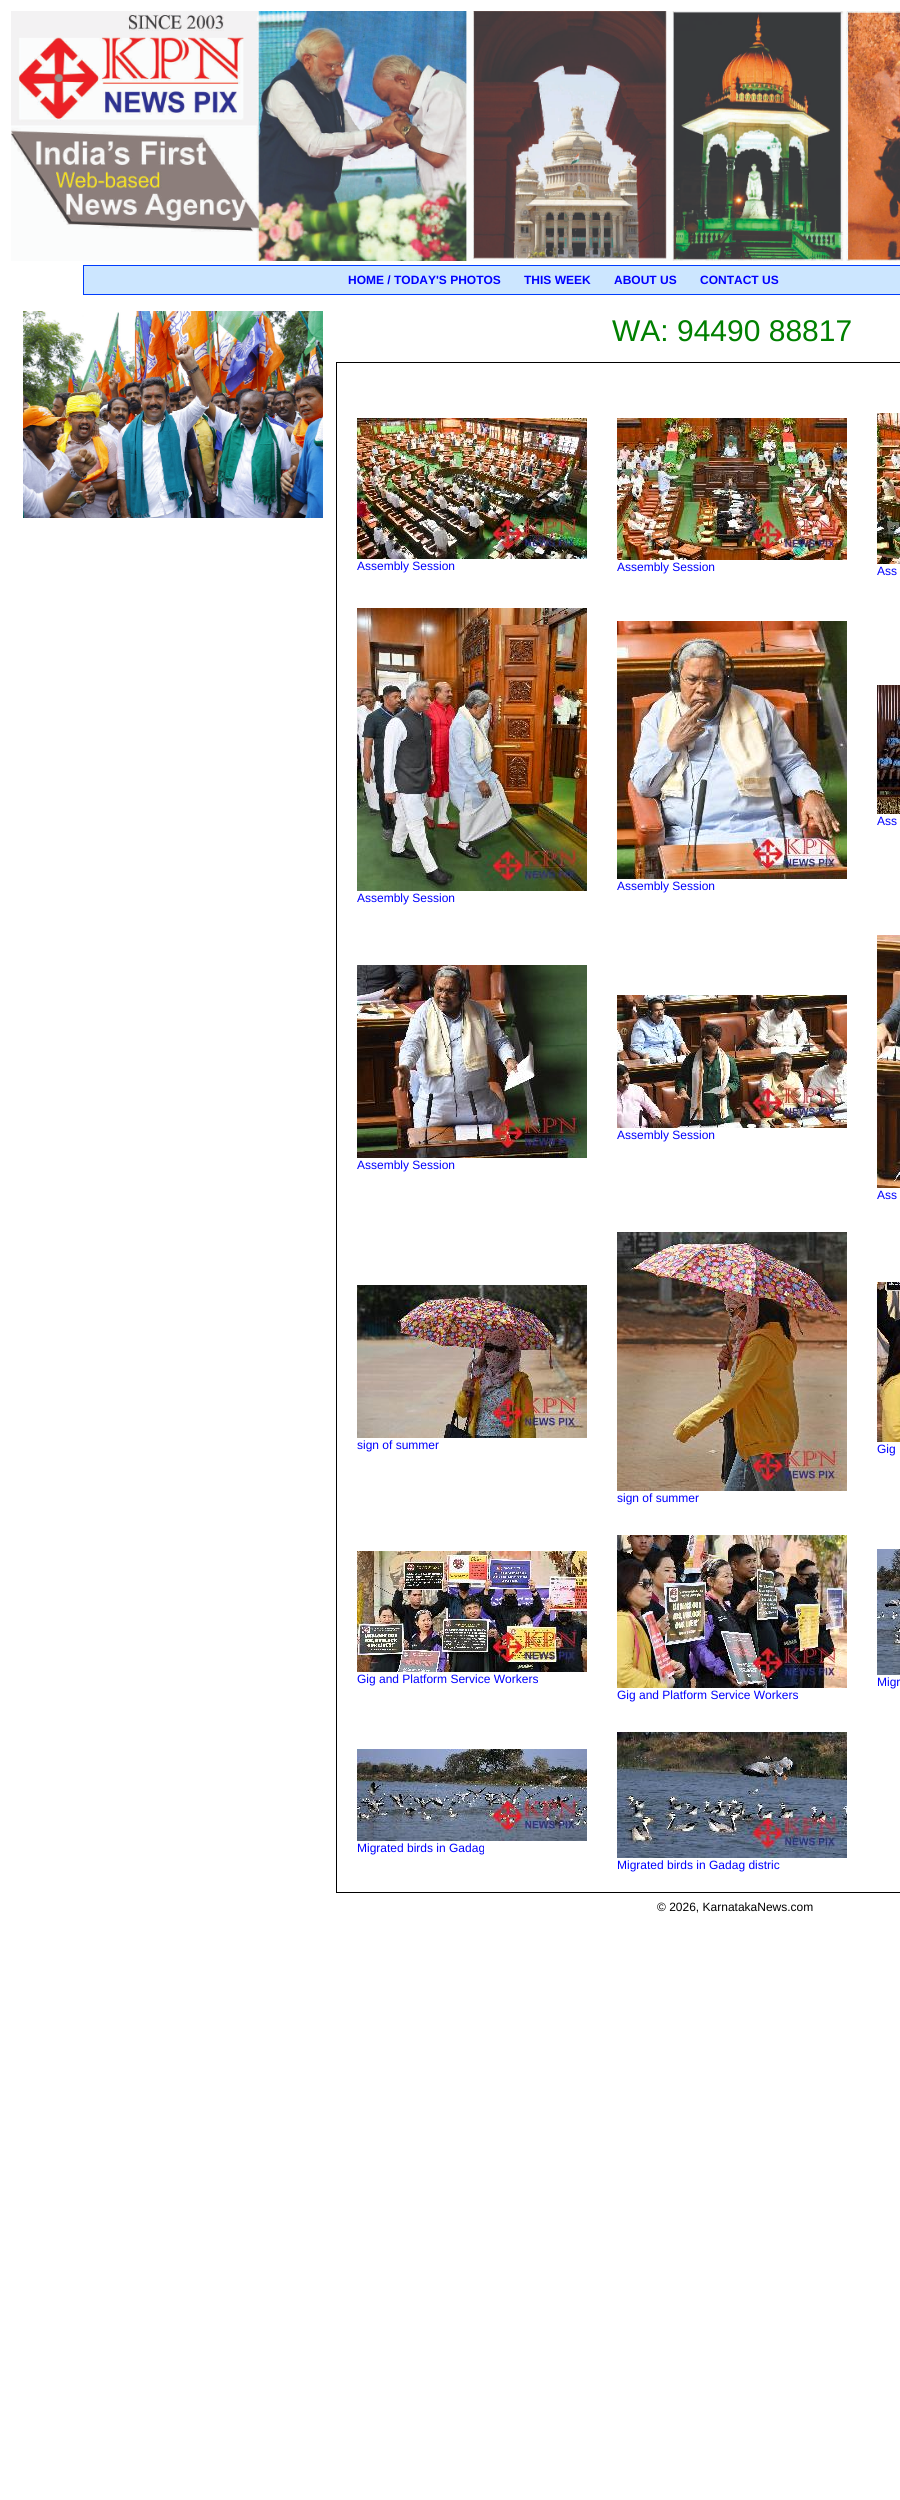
#include <cairo.h>
#include <math.h>
#include <stddef.h>


static void picture(cairo_t *cr, const char *path, double x, double y, double w, double h) {
    cairo_surface_t *image = cairo_image_surface_create_from_png(path);
    cairo_save(cr);
    cairo_set_source_surface(cr, image, x, y);
    cairo_rectangle(cr, x, y, w, h);
    cairo_fill(cr);
    cairo_restore(cr);
    cairo_surface_destroy(image);
}

int main(void) {
    cairo_surface_t *surface = cairo_image_surface_create(CAIRO_FORMAT_RGB24, 900, 2500);
    cairo_t *cr = cairo_create(surface);
    cairo_font_options_t *options = cairo_font_options_create();
    cairo_font_options_set_hint_metrics(options, CAIRO_HINT_METRICS_OFF);
    cairo_font_options_set_hint_style(options, CAIRO_HINT_STYLE_NONE);
    cairo_set_font_options(cr, options);
    cairo_set_miter_limit(cr, 4);
    cairo_set_source_rgb(cr, 1, 1, 1);
    cairo_paint(cr);
    picture(cr, "img1.png", 11, 11, 889, 250);
    cairo_set_source_rgb(cr, 0.8, 0.902, 1);
    cairo_rectangle(cr, 83.5, 265.5, 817, 29);
    cairo_fill_preserve(cr);
    cairo_set_source_rgb(cr, 0, 0.235, 0.988);
    cairo_set_line_width(cr, 1);
    cairo_stroke(cr);
    cairo_select_font_face(cr, "Liberation Sans", CAIRO_FONT_SLANT_NORMAL, CAIRO_FONT_WEIGHT_BOLD);
    cairo_set_font_size(cr, 12);
    cairo_set_source_rgb(cr, 0, 0, 1);
    cairo_move_to(cr, 348, 284);
    cairo_show_text(cr, "HOME / TODAY'S PHOTOS");
    cairo_move_to(cr, 524, 284);
    cairo_show_text(cr, "THIS WEEK");
    cairo_move_to(cr, 614, 284);
    cairo_show_text(cr, "ABOUT US");
    cairo_move_to(cr, 700, 284);
    cairo_show_text(cr, "CONTACT US");
    picture(cr, "img2.png", 23, 311, 300, 207);
    cairo_select_font_face(cr, "Liberation Sans", CAIRO_FONT_SLANT_NORMAL, CAIRO_FONT_WEIGHT_NORMAL);
    cairo_set_font_size(cr, 30);
    cairo_set_source_rgb(cr, 0, 0.502, 0);
    cairo_move_to(cr, 612, 341);
    cairo_show_text(cr, "WA: 94490 88817");
    cairo_rectangle(cr, 336.5, 362.5, 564, 1530);
    cairo_set_source_rgb(cr, 0, 0, 0);
    cairo_stroke(cr);
    picture(cr, "img3.png", 357, 418, 230, 141);
    cairo_set_font_size(cr, 12);
    cairo_set_source_rgb(cr, 0, 0, 1);
    cairo_move_to(cr, 357, 570);
    cairo_show_text(cr, "Assembly Session");
    picture(cr, "img4.png", 617, 418, 230, 142);
    cairo_move_to(cr, 617, 571);
    cairo_show_text(cr, "Assembly Session");
    picture(cr, "img5.png", 877, 413, 23, 151);
    cairo_move_to(cr, 877, 575);
    cairo_show_text(cr, "Ass");
    picture(cr, "img6.png", 877, 685, 23, 129);
    cairo_move_to(cr, 877, 825);
    cairo_show_text(cr, "Ass");
    picture(cr, "img7.png", 617, 621, 230, 258);
    cairo_move_to(cr, 617, 890);
    cairo_show_text(cr, "Assembly Session");
    picture(cr, "img8.png", 357, 608, 230, 283);
    cairo_move_to(cr, 357, 902);
    cairo_show_text(cr, "Assembly Session");
    picture(cr, "img9.png", 617, 995, 230, 133);
    cairo_move_to(cr, 617, 1139);
    cairo_show_text(cr, "Assembly Session");
    picture(cr, "img10.png", 357, 965, 230, 193);
    cairo_move_to(cr, 357, 1169);
    cairo_show_text(cr, "Assembly Session");
    picture(cr, "img11.png", 877, 935, 23, 253);
    cairo_move_to(cr, 877, 1199);
    cairo_show_text(cr, "Ass");
    picture(cr, "img12.png", 357, 1285, 230, 153);
    cairo_move_to(cr, 357, 1449);
    cairo_show_text(cr, "sign of summer");
    picture(cr, "img13.png", 877, 1282, 23, 160);
    cairo_move_to(cr, 877, 1453);
    cairo_show_text(cr, "Gig");
    picture(cr, "img14.png", 617, 1232, 230, 259);
    cairo_move_to(cr, 617, 1502);
    cairo_show_text(cr, "sign of summer");
    picture(cr, "img15.png", 357, 1551, 230, 121);
    cairo_move_to(cr, 357, 1683);
    cairo_show_text(cr, "Gig and Platform Service Workers");
    picture(cr, "img16.png", 877, 1549, 23, 126);
    cairo_move_to(cr, 877, 1686);
    cairo_show_text(cr, "Migr");
    picture(cr, "img17.png", 617, 1535, 230, 153);
    cairo_move_to(cr, 617, 1699);
    cairo_show_text(cr, "Gig and Platform Service Workers");
    picture(cr, "img18.png", 357, 1749, 230, 92);
    cairo_move_to(cr, 357, 1852);
    cairo_show_text(cr, "Migrated birds in Gadag");
    picture(cr, "img19.png", 617, 1732, 230, 126);
    cairo_move_to(cr, 617, 1869);
    cairo_show_text(cr, "Migrated birds in Gadag distric");
    cairo_set_source_rgb(cr, 0, 0, 0);
    cairo_move_to(cr, 657, 1911);
    cairo_show_text(cr, "© 2026, KarnatakaNews.com");
    cairo_surface_write_to_png(surface, "page.png");
    cairo_font_options_destroy(options);
    cairo_destroy(cr);
    cairo_surface_destroy(surface);
    return 0;
}
